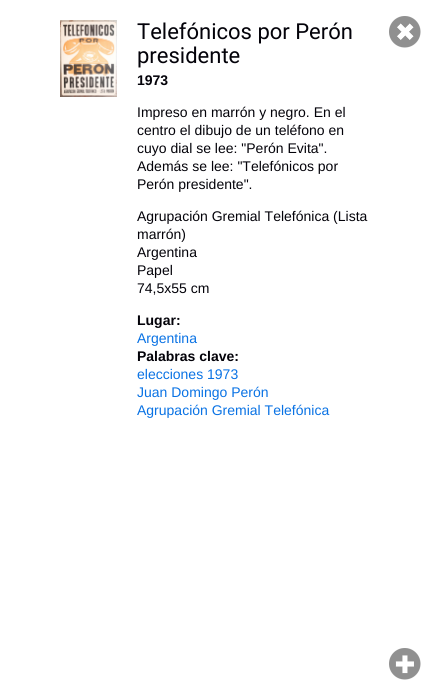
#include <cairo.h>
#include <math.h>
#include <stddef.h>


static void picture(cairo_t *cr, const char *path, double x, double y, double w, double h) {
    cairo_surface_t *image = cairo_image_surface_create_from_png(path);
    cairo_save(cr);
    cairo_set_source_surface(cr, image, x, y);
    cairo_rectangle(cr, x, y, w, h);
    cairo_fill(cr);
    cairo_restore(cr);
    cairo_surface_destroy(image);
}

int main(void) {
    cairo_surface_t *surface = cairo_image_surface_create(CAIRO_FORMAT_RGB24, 437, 696);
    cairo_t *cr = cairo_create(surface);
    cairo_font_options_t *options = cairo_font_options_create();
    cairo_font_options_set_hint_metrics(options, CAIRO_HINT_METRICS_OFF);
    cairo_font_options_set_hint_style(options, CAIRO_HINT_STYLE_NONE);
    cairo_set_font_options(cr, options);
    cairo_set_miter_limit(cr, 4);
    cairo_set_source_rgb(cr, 1, 1, 1);
    cairo_paint(cr);
    picture(cr, "img1.png", 60, 20, 57, 77);
    cairo_select_font_face(cr, "Roboto", CAIRO_FONT_SLANT_NORMAL, CAIRO_FONT_WEIGHT_NORMAL);
    cairo_set_font_size(cr, 22);
    cairo_set_source_rgb(cr, 0.012, 0.008, 0.039);
    cairo_move_to(cr, 137, 39);
    cairo_show_text(cr, "Telefónicos por Perón");
    cairo_move_to(cr, 137, 63);
    cairo_show_text(cr, "presidente");
    cairo_select_font_face(cr, "Liberation Sans", CAIRO_FONT_SLANT_NORMAL, CAIRO_FONT_WEIGHT_BOLD);
    cairo_set_font_size(cr, 14);
    cairo_move_to(cr, 137, 85);
    cairo_show_text(cr, "1973");
    cairo_select_font_face(cr, "Liberation Sans", CAIRO_FONT_SLANT_NORMAL, CAIRO_FONT_WEIGHT_NORMAL);
    cairo_move_to(cr, 137, 117);
    cairo_show_text(cr, "Impreso en marrón y negro. En el");
    cairo_move_to(cr, 137, 135);
    cairo_show_text(cr, "centro el dibujo de un teléfono en");
    cairo_move_to(cr, 137, 153);
    cairo_show_text(cr, "cuyo dial se lee: \"Perón Evita\".");
    cairo_move_to(cr, 137, 171);
    cairo_show_text(cr, "Además se lee: \"Telefónicos por");
    cairo_move_to(cr, 137, 189);
    cairo_show_text(cr, "Perón presidente\".");
    cairo_move_to(cr, 137, 221);
    cairo_show_text(cr, "Agrupación Gremial Telefónica (Lista");
    cairo_move_to(cr, 137, 239);
    cairo_show_text(cr, "marrón)");
    cairo_move_to(cr, 137, 257);
    cairo_show_text(cr, "Argentina");
    cairo_move_to(cr, 137, 275);
    cairo_show_text(cr, "Papel");
    cairo_move_to(cr, 137, 293);
    cairo_show_text(cr, "74,5x55 cm");
    cairo_select_font_face(cr, "Liberation Sans", CAIRO_FONT_SLANT_NORMAL, CAIRO_FONT_WEIGHT_BOLD);
    cairo_move_to(cr, 137, 325);
    cairo_show_text(cr, "Lugar:");
    cairo_select_font_face(cr, "Liberation Sans", CAIRO_FONT_SLANT_NORMAL, CAIRO_FONT_WEIGHT_NORMAL);
    cairo_set_source_rgb(cr, 0.039, 0.447, 0.894);
    cairo_move_to(cr, 137, 343);
    cairo_show_text(cr, "Argentina");
    cairo_select_font_face(cr, "Liberation Sans", CAIRO_FONT_SLANT_NORMAL, CAIRO_FONT_WEIGHT_BOLD);
    cairo_set_source_rgb(cr, 0.012, 0.008, 0.039);
    cairo_move_to(cr, 137, 361);
    cairo_show_text(cr, "Palabras clave:");
    cairo_select_font_face(cr, "Liberation Sans", CAIRO_FONT_SLANT_NORMAL, CAIRO_FONT_WEIGHT_NORMAL);
    cairo_set_source_rgb(cr, 0.039, 0.447, 0.894);
    cairo_move_to(cr, 137, 379);
    cairo_show_text(cr, "elecciones 1973");
    cairo_move_to(cr, 137, 397);
    cairo_show_text(cr, "Juan Domingo Perón");
    cairo_move_to(cr, 137, 415);
    cairo_show_text(cr, "Agrupación Gremial Telefónica");
    picture(cr, "img2.png", 389, 16, 32, 32);
    picture(cr, "img3.png", 389, 648, 32, 32);
    cairo_surface_write_to_png(surface, "page.png");
    cairo_font_options_destroy(options);
    cairo_destroy(cr);
    cairo_surface_destroy(surface);
    return 0;
}
